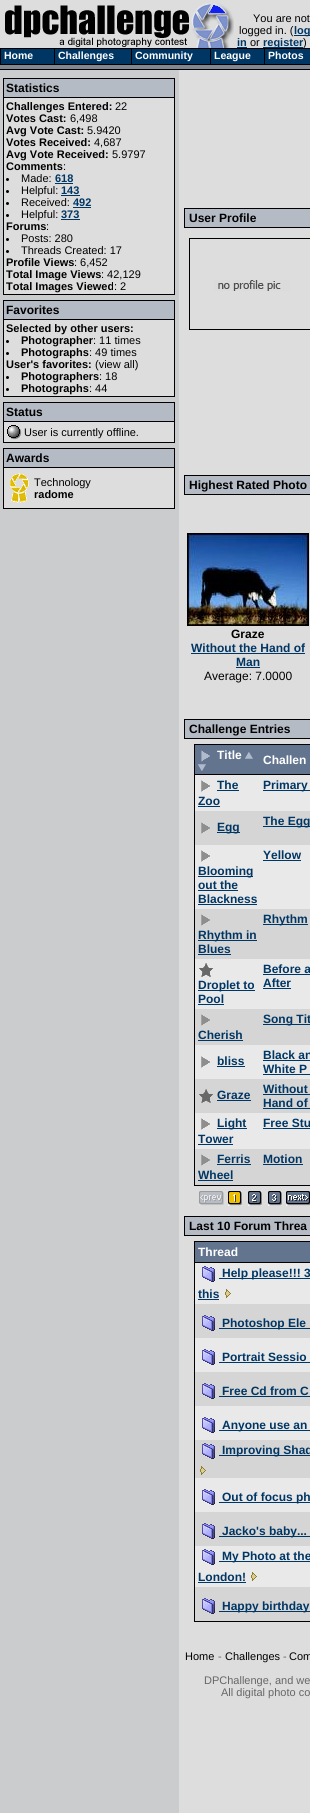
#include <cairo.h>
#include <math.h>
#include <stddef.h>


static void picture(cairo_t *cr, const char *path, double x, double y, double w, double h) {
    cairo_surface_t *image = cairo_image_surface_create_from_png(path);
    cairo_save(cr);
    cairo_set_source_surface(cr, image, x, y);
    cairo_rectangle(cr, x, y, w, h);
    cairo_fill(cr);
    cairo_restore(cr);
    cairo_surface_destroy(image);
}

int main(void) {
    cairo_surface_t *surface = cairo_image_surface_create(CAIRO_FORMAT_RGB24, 310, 1813);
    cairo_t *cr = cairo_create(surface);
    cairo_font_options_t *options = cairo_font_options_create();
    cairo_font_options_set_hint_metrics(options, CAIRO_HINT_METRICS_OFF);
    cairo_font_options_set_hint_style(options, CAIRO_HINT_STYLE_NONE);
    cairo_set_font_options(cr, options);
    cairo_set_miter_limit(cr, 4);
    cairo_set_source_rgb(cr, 0.867, 0.867, 0.867);
    cairo_paint(cr);
    cairo_set_source_rgb(cr, 0.792, 0.8, 0.808);
    cairo_rectangle(cr, 0, 70, 179, 1743);
    cairo_fill(cr);
    picture(cr, "img1.png", 0, 0, 234, 48);
    cairo_select_font_face(cr, "Liberation Sans", CAIRO_FONT_SLANT_NORMAL, CAIRO_FONT_WEIGHT_NORMAL);
    cairo_set_font_size(cr, 11);
    cairo_set_source_rgb(cr, 0, 0, 0);
    cairo_move_to(cr, 253, 22);
    cairo_show_text(cr, "You are not");
    cairo_move_to(cr, 239, 34);
    cairo_show_text(cr, "logged in. (");
    cairo_set_source_rgb(cr, 0, 0.212, 0.392);
    cairo_rectangle(cr, 294, 35, 16, 1);
    cairo_fill(cr);
    cairo_select_font_face(cr, "Liberation Sans", CAIRO_FONT_SLANT_NORMAL, CAIRO_FONT_WEIGHT_BOLD);
    cairo_move_to(cr, 294, 34);
    cairo_show_text(cr, "log");
    cairo_move_to(cr, 237, 46);
    cairo_show_text(cr, "in");
    cairo_rectangle(cr, 237, 47, 10, 1);
    cairo_fill(cr);
    cairo_select_font_face(cr, "Liberation Sans", CAIRO_FONT_SLANT_NORMAL, CAIRO_FONT_WEIGHT_NORMAL);
    cairo_set_source_rgb(cr, 0, 0, 0);
    cairo_move_to(cr, 250, 46);
    cairo_show_text(cr, "or");
    cairo_set_source_rgb(cr, 0, 0.212, 0.392);
    cairo_rectangle(cr, 263, 47, 40, 1);
    cairo_fill(cr);
    cairo_select_font_face(cr, "Liberation Sans", CAIRO_FONT_SLANT_NORMAL, CAIRO_FONT_WEIGHT_BOLD);
    cairo_move_to(cr, 263, 46);
    cairo_show_text(cr, "register");
    cairo_select_font_face(cr, "Liberation Sans", CAIRO_FONT_SLANT_NORMAL, CAIRO_FONT_WEIGHT_NORMAL);
    cairo_set_source_rgb(cr, 0, 0, 0);
    cairo_move_to(cr, 303, 46);
    cairo_show_text(cr, ")");
    picture(cr, "img2.png", 0, 65, 234, 5);
    picture(cr, "img3.png", 234, 65, 76, 5);
    cairo_rectangle(cr, 0, 48, 310, 17);
    cairo_fill(cr);
    cairo_set_source_rgb(cr, 0, 0.212, 0.392);
    cairo_rectangle(cr, 1, 49, 53, 15);
    cairo_fill(cr);
    cairo_select_font_face(cr, "Liberation Sans", CAIRO_FONT_SLANT_NORMAL, CAIRO_FONT_WEIGHT_BOLD);
    cairo_set_font_size(cr, 10.5);
    cairo_set_source_rgb(cr, 1, 1, 1);
    cairo_move_to(cr, 4, 59);
    cairo_show_text(cr, "Home");
    cairo_set_source_rgb(cr, 0, 0.212, 0.392);
    cairo_rectangle(cr, 55, 49, 76, 15);
    cairo_fill(cr);
    cairo_set_source_rgb(cr, 1, 1, 1);
    cairo_move_to(cr, 58, 59);
    cairo_show_text(cr, "Challenges");
    cairo_set_source_rgb(cr, 0, 0.212, 0.392);
    cairo_rectangle(cr, 132, 49, 78, 15);
    cairo_fill(cr);
    cairo_set_source_rgb(cr, 1, 1, 1);
    cairo_move_to(cr, 135, 59);
    cairo_show_text(cr, "Community");
    cairo_set_source_rgb(cr, 0, 0.212, 0.392);
    cairo_rectangle(cr, 211, 49, 53, 15);
    cairo_fill(cr);
    cairo_set_source_rgb(cr, 1, 1, 1);
    cairo_move_to(cr, 214, 59);
    cairo_show_text(cr, "League");
    cairo_set_source_rgb(cr, 0, 0.212, 0.392);
    cairo_rectangle(cr, 265, 49, 45, 15);
    cairo_fill(cr);
    cairo_set_source_rgb(cr, 1, 1, 1);
    cairo_move_to(cr, 268, 59);
    cairo_show_text(cr, "Photos");
    cairo_set_source_rgb(cr, 0.867, 0.867, 0.867);
    cairo_rectangle(cr, 4, 98, 170, 196);
    cairo_fill(cr);
    cairo_rectangle(cr, 3.5, 78.5, 171, 216);
    cairo_set_source_rgb(cr, 0, 0, 0);
    cairo_set_line_width(cr, 1);
    cairo_stroke(cr);
    cairo_set_source_rgb(cr, 0.71, 0.733, 0.773);
    cairo_rectangle(cr, 4, 79, 170, 18);
    cairo_fill(cr);
    cairo_set_source_rgb(cr, 0, 0, 0);
    cairo_rectangle(cr, 4, 97, 170, 1);
    cairo_fill(cr);
    cairo_set_font_size(cr, 12);
    cairo_move_to(cr, 6, 92);
    cairo_show_text(cr, "Statistics");
    cairo_set_font_size(cr, 11);
    cairo_move_to(cr, 6, 110);
    cairo_show_text(cr, "Challenges Entered:");
    cairo_select_font_face(cr, "Liberation Sans", CAIRO_FONT_SLANT_NORMAL, CAIRO_FONT_WEIGHT_NORMAL);
    cairo_move_to(cr, 115, 110);
    cairo_show_text(cr, "22");
    cairo_select_font_face(cr, "Liberation Sans", CAIRO_FONT_SLANT_NORMAL, CAIRO_FONT_WEIGHT_BOLD);
    cairo_move_to(cr, 6, 122);
    cairo_show_text(cr, "Votes Cast:");
    cairo_select_font_face(cr, "Liberation Sans", CAIRO_FONT_SLANT_NORMAL, CAIRO_FONT_WEIGHT_NORMAL);
    cairo_move_to(cr, 70, 122);
    cairo_show_text(cr, "6,498");
    cairo_select_font_face(cr, "Liberation Sans", CAIRO_FONT_SLANT_NORMAL, CAIRO_FONT_WEIGHT_BOLD);
    cairo_move_to(cr, 6, 134);
    cairo_show_text(cr, "Avg Vote Cast:");
    cairo_select_font_face(cr, "Liberation Sans", CAIRO_FONT_SLANT_NORMAL, CAIRO_FONT_WEIGHT_NORMAL);
    cairo_move_to(cr, 87, 134);
    cairo_show_text(cr, "5.9420");
    cairo_select_font_face(cr, "Liberation Sans", CAIRO_FONT_SLANT_NORMAL, CAIRO_FONT_WEIGHT_BOLD);
    cairo_move_to(cr, 6, 146);
    cairo_show_text(cr, "Votes Received:");
    cairo_select_font_face(cr, "Liberation Sans", CAIRO_FONT_SLANT_NORMAL, CAIRO_FONT_WEIGHT_NORMAL);
    cairo_move_to(cr, 94, 146);
    cairo_show_text(cr, "4,687");
    cairo_select_font_face(cr, "Liberation Sans", CAIRO_FONT_SLANT_NORMAL, CAIRO_FONT_WEIGHT_BOLD);
    cairo_move_to(cr, 6, 158);
    cairo_show_text(cr, "Avg Vote Received:");
    cairo_select_font_face(cr, "Liberation Sans", CAIRO_FONT_SLANT_NORMAL, CAIRO_FONT_WEIGHT_NORMAL);
    cairo_move_to(cr, 112, 158);
    cairo_show_text(cr, "5.9797");
    cairo_select_font_face(cr, "Liberation Sans", CAIRO_FONT_SLANT_NORMAL, CAIRO_FONT_WEIGHT_BOLD);
    cairo_move_to(cr, 6, 170);
    cairo_show_text(cr, "Comments");
    cairo_select_font_face(cr, "Liberation Sans", CAIRO_FONT_SLANT_NORMAL, CAIRO_FONT_WEIGHT_NORMAL);
    cairo_move_to(cr, 63, 170);
    cairo_show_text(cr, ":");
    cairo_new_path(cr);
    cairo_arc(cr, 7.5, 179.5, 1.5, 0, 2 * M_PI);
    cairo_fill(cr);
    cairo_move_to(cr, 21, 182);
    cairo_show_text(cr, "Made:");
    cairo_select_font_face(cr, "Liberation Sans", CAIRO_FONT_SLANT_NORMAL, CAIRO_FONT_WEIGHT_BOLD);
    cairo_set_source_rgb(cr, 0, 0.212, 0.392);
    cairo_move_to(cr, 55, 182);
    cairo_show_text(cr, "618");
    cairo_rectangle(cr, 55, 183, 18, 1);
    cairo_fill(cr);
    cairo_set_source_rgb(cr, 0, 0, 0);
    cairo_arc(cr, 7.5, 191.5, 1.5, 0, 2 * M_PI);
    cairo_fill(cr);
    cairo_select_font_face(cr, "Liberation Sans", CAIRO_FONT_SLANT_NORMAL, CAIRO_FONT_WEIGHT_NORMAL);
    cairo_move_to(cr, 21, 194);
    cairo_show_text(cr, "Helpful:");
    cairo_select_font_face(cr, "Liberation Sans", CAIRO_FONT_SLANT_NORMAL, CAIRO_FONT_WEIGHT_BOLD);
    cairo_set_source_rgb(cr, 0, 0.212, 0.392);
    cairo_move_to(cr, 61, 194);
    cairo_show_text(cr, "143");
    cairo_rectangle(cr, 61, 195, 19, 1);
    cairo_fill(cr);
    cairo_set_source_rgb(cr, 0, 0, 0);
    cairo_arc(cr, 7.5, 203.5, 1.5, 0, 2 * M_PI);
    cairo_fill(cr);
    cairo_select_font_face(cr, "Liberation Sans", CAIRO_FONT_SLANT_NORMAL, CAIRO_FONT_WEIGHT_NORMAL);
    cairo_move_to(cr, 21, 206);
    cairo_show_text(cr, "Received:");
    cairo_select_font_face(cr, "Liberation Sans", CAIRO_FONT_SLANT_NORMAL, CAIRO_FONT_WEIGHT_BOLD);
    cairo_set_source_rgb(cr, 0, 0.212, 0.392);
    cairo_move_to(cr, 73, 206);
    cairo_show_text(cr, "492");
    cairo_rectangle(cr, 73, 207, 18, 1);
    cairo_fill(cr);
    cairo_set_source_rgb(cr, 0, 0, 0);
    cairo_arc(cr, 7.5, 215.5, 1.5, 0, 2 * M_PI);
    cairo_fill(cr);
    cairo_select_font_face(cr, "Liberation Sans", CAIRO_FONT_SLANT_NORMAL, CAIRO_FONT_WEIGHT_NORMAL);
    cairo_move_to(cr, 21, 218);
    cairo_show_text(cr, "Helpful:");
    cairo_select_font_face(cr, "Liberation Sans", CAIRO_FONT_SLANT_NORMAL, CAIRO_FONT_WEIGHT_BOLD);
    cairo_set_source_rgb(cr, 0, 0.212, 0.392);
    cairo_move_to(cr, 61, 218);
    cairo_show_text(cr, "373");
    cairo_rectangle(cr, 61, 219, 19, 1);
    cairo_fill(cr);
    cairo_set_source_rgb(cr, 0, 0, 0);
    cairo_move_to(cr, 6, 230);
    cairo_show_text(cr, "Forums");
    cairo_select_font_face(cr, "Liberation Sans", CAIRO_FONT_SLANT_NORMAL, CAIRO_FONT_WEIGHT_NORMAL);
    cairo_move_to(cr, 46, 230);
    cairo_show_text(cr, ":");
    cairo_new_path(cr);
    cairo_arc(cr, 7.5, 239.5, 1.5, 0, 2 * M_PI);
    cairo_fill(cr);
    cairo_move_to(cr, 21, 242);
    cairo_show_text(cr, "Posts: 280");
    cairo_new_path(cr);
    cairo_arc(cr, 7.5, 251.5, 1.5, 0, 2 * M_PI);
    cairo_fill(cr);
    cairo_move_to(cr, 21, 254);
    cairo_show_text(cr, "Threads Created: 17");
    cairo_select_font_face(cr, "Liberation Sans", CAIRO_FONT_SLANT_NORMAL, CAIRO_FONT_WEIGHT_BOLD);
    cairo_move_to(cr, 6, 266);
    cairo_show_text(cr, "Profile Views");
    cairo_select_font_face(cr, "Liberation Sans", CAIRO_FONT_SLANT_NORMAL, CAIRO_FONT_WEIGHT_NORMAL);
    cairo_move_to(cr, 74, 266);
    cairo_show_text(cr, ": 6,452");
    cairo_select_font_face(cr, "Liberation Sans", CAIRO_FONT_SLANT_NORMAL, CAIRO_FONT_WEIGHT_BOLD);
    cairo_move_to(cr, 6, 278);
    cairo_show_text(cr, "Total Image Views");
    cairo_select_font_face(cr, "Liberation Sans", CAIRO_FONT_SLANT_NORMAL, CAIRO_FONT_WEIGHT_NORMAL);
    cairo_move_to(cr, 101, 278);
    cairo_show_text(cr, ": 42,129");
    cairo_select_font_face(cr, "Liberation Sans", CAIRO_FONT_SLANT_NORMAL, CAIRO_FONT_WEIGHT_BOLD);
    cairo_move_to(cr, 6, 290);
    cairo_show_text(cr, "Total Images Viewed");
    cairo_select_font_face(cr, "Liberation Sans", CAIRO_FONT_SLANT_NORMAL, CAIRO_FONT_WEIGHT_NORMAL);
    cairo_move_to(cr, 114, 290);
    cairo_show_text(cr, ": 2");
    cairo_set_source_rgb(cr, 0.867, 0.867, 0.867);
    cairo_rectangle(cr, 4, 320, 170, 76);
    cairo_fill(cr);
    cairo_rectangle(cr, 3.5, 300.5, 171, 96);
    cairo_set_source_rgb(cr, 0, 0, 0);
    cairo_stroke(cr);
    cairo_set_source_rgb(cr, 0.71, 0.733, 0.773);
    cairo_rectangle(cr, 4, 301, 170, 18);
    cairo_fill(cr);
    cairo_set_source_rgb(cr, 0, 0, 0);
    cairo_rectangle(cr, 4, 319, 170, 1);
    cairo_fill(cr);
    cairo_select_font_face(cr, "Liberation Sans", CAIRO_FONT_SLANT_NORMAL, CAIRO_FONT_WEIGHT_BOLD);
    cairo_set_font_size(cr, 12);
    cairo_move_to(cr, 6, 314);
    cairo_show_text(cr, "Favorites");
    cairo_set_font_size(cr, 11);
    cairo_move_to(cr, 6, 332);
    cairo_show_text(cr, "Selected by other users:");
    cairo_new_path(cr);
    cairo_arc(cr, 7.5, 341.5, 1.5, 0, 2 * M_PI);
    cairo_fill(cr);
    cairo_move_to(cr, 21, 344);
    cairo_show_text(cr, "Photographer");
    cairo_select_font_face(cr, "Liberation Sans", CAIRO_FONT_SLANT_NORMAL, CAIRO_FONT_WEIGHT_NORMAL);
    cairo_move_to(cr, 93, 344);
    cairo_show_text(cr, ": 11 times");
    cairo_new_path(cr);
    cairo_arc(cr, 7.5, 353.5, 1.5, 0, 2 * M_PI);
    cairo_fill(cr);
    cairo_select_font_face(cr, "Liberation Sans", CAIRO_FONT_SLANT_NORMAL, CAIRO_FONT_WEIGHT_BOLD);
    cairo_move_to(cr, 21, 356);
    cairo_show_text(cr, "Photographs");
    cairo_select_font_face(cr, "Liberation Sans", CAIRO_FONT_SLANT_NORMAL, CAIRO_FONT_WEIGHT_NORMAL);
    cairo_move_to(cr, 89, 356);
    cairo_show_text(cr, ": 49 times");
    cairo_select_font_face(cr, "Liberation Sans", CAIRO_FONT_SLANT_NORMAL, CAIRO_FONT_WEIGHT_BOLD);
    cairo_move_to(cr, 6, 368);
    cairo_show_text(cr, "User's favorites:");
    cairo_select_font_face(cr, "Liberation Sans", CAIRO_FONT_SLANT_NORMAL, CAIRO_FONT_WEIGHT_NORMAL);
    cairo_move_to(cr, 95, 368);
    cairo_show_text(cr, "(view all)");
    cairo_new_path(cr);
    cairo_arc(cr, 7.5, 377.5, 1.5, 0, 2 * M_PI);
    cairo_fill(cr);
    cairo_select_font_face(cr, "Liberation Sans", CAIRO_FONT_SLANT_NORMAL, CAIRO_FONT_WEIGHT_BOLD);
    cairo_move_to(cr, 21, 380);
    cairo_show_text(cr, "Photographers");
    cairo_select_font_face(cr, "Liberation Sans", CAIRO_FONT_SLANT_NORMAL, CAIRO_FONT_WEIGHT_NORMAL);
    cairo_move_to(cr, 99, 380);
    cairo_show_text(cr, ": 18");
    cairo_new_path(cr);
    cairo_arc(cr, 7.5, 389.5, 1.5, 0, 2 * M_PI);
    cairo_fill(cr);
    cairo_select_font_face(cr, "Liberation Sans", CAIRO_FONT_SLANT_NORMAL, CAIRO_FONT_WEIGHT_BOLD);
    cairo_move_to(cr, 21, 392);
    cairo_show_text(cr, "Photographs");
    cairo_select_font_face(cr, "Liberation Sans", CAIRO_FONT_SLANT_NORMAL, CAIRO_FONT_WEIGHT_NORMAL);
    cairo_move_to(cr, 89, 392);
    cairo_show_text(cr, ": 44");
    cairo_set_source_rgb(cr, 0.867, 0.867, 0.867);
    cairo_rectangle(cr, 4, 422, 170, 20);
    cairo_fill(cr);
    cairo_rectangle(cr, 3.5, 402.5, 171, 40);
    cairo_set_source_rgb(cr, 0, 0, 0);
    cairo_stroke(cr);
    cairo_set_source_rgb(cr, 0.71, 0.733, 0.773);
    cairo_rectangle(cr, 4, 403, 170, 18);
    cairo_fill(cr);
    cairo_set_source_rgb(cr, 0, 0, 0);
    cairo_rectangle(cr, 4, 421, 170, 1);
    cairo_fill(cr);
    cairo_select_font_face(cr, "Liberation Sans", CAIRO_FONT_SLANT_NORMAL, CAIRO_FONT_WEIGHT_BOLD);
    cairo_set_font_size(cr, 12);
    cairo_move_to(cr, 6, 416);
    cairo_show_text(cr, "Status");
    picture(cr, "img4.png", 7, 425, 15, 15);
    cairo_select_font_face(cr, "Liberation Sans", CAIRO_FONT_SLANT_NORMAL, CAIRO_FONT_WEIGHT_NORMAL);
    cairo_set_font_size(cr, 11);
    cairo_move_to(cr, 24, 436);
    cairo_show_text(cr, "User is currently offline.");
    cairo_set_source_rgb(cr, 0.867, 0.867, 0.867);
    cairo_rectangle(cr, 4, 468, 170, 40);
    cairo_fill(cr);
    cairo_rectangle(cr, 3.5, 448.5, 171, 60);
    cairo_set_source_rgb(cr, 0, 0, 0);
    cairo_stroke(cr);
    cairo_set_source_rgb(cr, 0.71, 0.733, 0.773);
    cairo_rectangle(cr, 4, 449, 170, 18);
    cairo_fill(cr);
    cairo_set_source_rgb(cr, 0, 0, 0);
    cairo_rectangle(cr, 4, 467, 170, 1);
    cairo_fill(cr);
    cairo_select_font_face(cr, "Liberation Sans", CAIRO_FONT_SLANT_NORMAL, CAIRO_FONT_WEIGHT_BOLD);
    cairo_set_font_size(cr, 12);
    cairo_move_to(cr, 6, 462);
    cairo_show_text(cr, "Awards");
    picture(cr, "img5.png", 10, 473, 19, 30);
    cairo_select_font_face(cr, "Liberation Sans", CAIRO_FONT_SLANT_NORMAL, CAIRO_FONT_WEIGHT_NORMAL);
    cairo_set_font_size(cr, 11);
    cairo_move_to(cr, 34, 486);
    cairo_show_text(cr, "Technology");
    cairo_select_font_face(cr, "Liberation Sans", CAIRO_FONT_SLANT_NORMAL, CAIRO_FONT_WEIGHT_BOLD);
    cairo_move_to(cr, 34, 498);
    cairo_show_text(cr, "radome");
    cairo_set_source_rgb(cr, 0.71, 0.733, 0.773);
    cairo_rectangle(cr, 184.5, 208.5, 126, 19);
    cairo_fill_preserve(cr);
    cairo_set_source_rgb(cr, 0, 0, 0);
    cairo_stroke(cr);
    cairo_set_font_size(cr, 12);
    cairo_move_to(cr, 189, 222);
    cairo_show_text(cr, "User Profile");
    cairo_rectangle(cr, 189.5, 238.5, 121, 91);
    cairo_stroke(cr);
    picture(cr, "img6.png", 214, 280, 76, 11);
    cairo_set_source_rgb(cr, 0.71, 0.733, 0.773);
    cairo_rectangle(cr, 184.5, 475.5, 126, 19);
    cairo_fill_preserve(cr);
    cairo_set_source_rgb(cr, 0, 0, 0);
    cairo_stroke(cr);
    cairo_move_to(cr, 189, 489);
    cairo_show_text(cr, "Highest Rated Photo");
    cairo_rectangle(cr, 187.5, 533.5, 121, 92);
    cairo_stroke(cr);
    picture(cr, "img7.png", 188, 534, 120, 91);
    cairo_move_to(cr, 231, 638);
    cairo_show_text(cr, "Graze");
    cairo_set_source_rgb(cr, 0, 0.212, 0.392);
    cairo_move_to(cr, 191, 652);
    cairo_show_text(cr, "Without the Hand of");
    cairo_rectangle(cr, 191, 653, 114, 1);
    cairo_fill(cr);
    cairo_move_to(cr, 236, 666);
    cairo_show_text(cr, "Man");
    cairo_rectangle(cr, 236, 667, 24, 1);
    cairo_fill(cr);
    cairo_select_font_face(cr, "Liberation Sans", CAIRO_FONT_SLANT_NORMAL, CAIRO_FONT_WEIGHT_NORMAL);
    cairo_set_source_rgb(cr, 0, 0, 0);
    cairo_move_to(cr, 204, 680);
    cairo_show_text(cr, "Average: 7.0000");
    cairo_set_source_rgb(cr, 0.71, 0.733, 0.773);
    cairo_rectangle(cr, 184.5, 719.5, 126, 19);
    cairo_fill_preserve(cr);
    cairo_set_source_rgb(cr, 0, 0, 0);
    cairo_stroke(cr);
    cairo_select_font_face(cr, "Liberation Sans", CAIRO_FONT_SLANT_NORMAL, CAIRO_FONT_WEIGHT_BOLD);
    cairo_move_to(cr, 189, 733);
    cairo_show_text(cr, "Challenge Entries");
    cairo_rectangle(cr, 194.5, 744.5, 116, 441);
    cairo_stroke(cr);
    cairo_set_source_rgb(cr, 0.388, 0.455, 0.561);
    cairo_rectangle(cr, 195, 745, 115, 29);
    cairo_fill(cr);
    cairo_set_source_rgb(cr, 0, 0, 0);
    cairo_rectangle(cr, 195, 774, 115, 1);
    cairo_fill(cr);
    picture(cr, "img8.png", 201, 750, 9, 12);
    cairo_set_source_rgb(cr, 1, 1, 1);
    cairo_move_to(cr, 217, 759);
    cairo_show_text(cr, "Title");
    picture(cr, "img9.png", 245, 752, 8, 7);
    picture(cr, "img10.png", 198, 764, 8, 7);
    cairo_move_to(cr, 263, 764);
    cairo_show_text(cr, "Challen");
    cairo_set_source_rgb(cr, 0.914, 0.914, 0.914);
    cairo_rectangle(cr, 195, 775, 115, 36);
    cairo_fill(cr);
    picture(cr, "img11.png", 201, 780, 9, 12);
    cairo_set_source_rgb(cr, 0, 0.212, 0.392);
    cairo_move_to(cr, 217, 789);
    cairo_show_text(cr, "The");
    cairo_rectangle(cr, 217, 790, 22, 1);
    cairo_fill(cr);
    cairo_move_to(cr, 198, 805);
    cairo_show_text(cr, "Zoo");
    cairo_rectangle(cr, 198, 806, 22, 1);
    cairo_fill(cr);
    cairo_rectangle(cr, 263, 790, 47, 1);
    cairo_fill(cr);
    cairo_move_to(cr, 263, 789);
    cairo_show_text(cr, "Primary");
    cairo_set_source_rgb(cr, 0.835, 0.835, 0.835);
    cairo_rectangle(cr, 195, 811, 115, 34);
    cairo_fill(cr);
    picture(cr, "img12.png", 201, 822, 9, 12);
    cairo_set_source_rgb(cr, 0, 0.212, 0.392);
    cairo_rectangle(cr, 217, 832, 23, 1);
    cairo_fill(cr);
    cairo_move_to(cr, 217, 831);
    cairo_show_text(cr, "Egg");
    cairo_rectangle(cr, 263, 826, 47, 1);
    cairo_fill(cr);
    cairo_move_to(cr, 263, 825);
    cairo_show_text(cr, "The Egg");
    cairo_set_source_rgb(cr, 0.914, 0.914, 0.914);
    cairo_rectangle(cr, 195, 845, 115, 64);
    cairo_fill(cr);
    cairo_set_source_rgb(cr, 0, 0.212, 0.392);
    cairo_move_to(cr, 263, 859);
    cairo_show_text(cr, "Yellow");
    cairo_rectangle(cr, 263, 860, 38, 1);
    cairo_fill(cr);
    picture(cr, "img11.png", 201, 850, 9, 12);
    cairo_rectangle(cr, 198, 876, 55, 1);
    cairo_fill(cr);
    cairo_move_to(cr, 198, 875);
    cairo_show_text(cr, "Blooming");
    cairo_move_to(cr, 198, 889);
    cairo_show_text(cr, "out the");
    cairo_rectangle(cr, 198, 890, 40, 1);
    cairo_fill(cr);
    cairo_move_to(cr, 198, 903);
    cairo_show_text(cr, "Blackness");
    cairo_rectangle(cr, 198, 904, 59, 1);
    cairo_fill(cr);
    cairo_set_source_rgb(cr, 0.835, 0.835, 0.835);
    cairo_rectangle(cr, 195, 909, 115, 50);
    cairo_fill(cr);
    cairo_set_source_rgb(cr, 0, 0.212, 0.392);
    cairo_rectangle(cr, 263, 924, 45, 1);
    cairo_fill(cr);
    cairo_move_to(cr, 263, 923);
    cairo_show_text(cr, "Rhythm");
    picture(cr, "img12.png", 201, 914, 9, 12);
    cairo_rectangle(cr, 198, 940, 59, 1);
    cairo_fill(cr);
    cairo_move_to(cr, 198, 939);
    cairo_show_text(cr, "Rhythm in");
    cairo_move_to(cr, 198, 953);
    cairo_show_text(cr, "Blues");
    cairo_rectangle(cr, 198, 954, 33, 1);
    cairo_fill(cr);
    cairo_set_source_rgb(cr, 0.914, 0.914, 0.914);
    cairo_rectangle(cr, 195, 959, 115, 50);
    cairo_fill(cr);
    cairo_set_source_rgb(cr, 0, 0.212, 0.392);
    cairo_move_to(cr, 263, 973);
    cairo_show_text(cr, "Before a");
    cairo_rectangle(cr, 263, 974, 47, 1);
    cairo_fill(cr);
    cairo_move_to(cr, 263, 987);
    cairo_show_text(cr, "After");
    cairo_rectangle(cr, 263, 988, 28, 1);
    cairo_fill(cr);
    picture(cr, "img13.png", 199, 963, 14, 14);
    cairo_rectangle(cr, 198, 990, 57, 1);
    cairo_fill(cr);
    cairo_move_to(cr, 198, 989);
    cairo_show_text(cr, "Droplet to");
    cairo_move_to(cr, 198, 1003);
    cairo_show_text(cr, "Pool");
    cairo_rectangle(cr, 198, 1004, 26, 1);
    cairo_fill(cr);
    cairo_set_source_rgb(cr, 0.835, 0.835, 0.835);
    cairo_rectangle(cr, 195, 1009, 115, 36);
    cairo_fill(cr);
    cairo_set_source_rgb(cr, 0, 0.212, 0.392);
    cairo_rectangle(cr, 263, 1024, 47, 1);
    cairo_fill(cr);
    cairo_move_to(cr, 263, 1023);
    cairo_show_text(cr, "Song Tit");
    picture(cr, "img12.png", 201, 1014, 9, 12);
    cairo_move_to(cr, 198, 1039);
    cairo_show_text(cr, "Cherish");
    cairo_rectangle(cr, 198, 1040, 45, 1);
    cairo_fill(cr);
    cairo_set_source_rgb(cr, 0.914, 0.914, 0.914);
    cairo_rectangle(cr, 195, 1045, 115, 34);
    cairo_fill(cr);
    picture(cr, "img11.png", 201, 1056, 9, 12);
    cairo_set_source_rgb(cr, 0, 0.212, 0.392);
    cairo_move_to(cr, 217, 1065);
    cairo_show_text(cr, "bliss");
    cairo_rectangle(cr, 217, 1066, 28, 1);
    cairo_fill(cr);
    cairo_move_to(cr, 263, 1059);
    cairo_show_text(cr, "Black an");
    cairo_rectangle(cr, 263, 1060, 47, 1);
    cairo_fill(cr);
    cairo_move_to(cr, 263, 1073);
    cairo_show_text(cr, "White P");
    cairo_rectangle(cr, 263, 1074, 47, 1);
    cairo_fill(cr);
    cairo_set_source_rgb(cr, 0.835, 0.835, 0.835);
    cairo_rectangle(cr, 195, 1079, 115, 34);
    cairo_fill(cr);
    picture(cr, "img14.png", 199, 1089, 14, 14);
    cairo_set_source_rgb(cr, 0, 0.212, 0.392);
    cairo_move_to(cr, 217, 1099);
    cairo_show_text(cr, "Graze");
    cairo_rectangle(cr, 217, 1100, 34, 1);
    cairo_fill(cr);
    cairo_move_to(cr, 263, 1093);
    cairo_show_text(cr, "Without");
    cairo_rectangle(cr, 263, 1094, 47, 1);
    cairo_fill(cr);
    cairo_move_to(cr, 263, 1107);
    cairo_show_text(cr, "Hand of");
    cairo_rectangle(cr, 263, 1108, 47, 1);
    cairo_fill(cr);
    cairo_set_source_rgb(cr, 0.914, 0.914, 0.914);
    cairo_rectangle(cr, 195, 1113, 115, 36);
    cairo_fill(cr);
    picture(cr, "img11.png", 201, 1118, 9, 12);
    cairo_set_source_rgb(cr, 0, 0.212, 0.392);
    cairo_rectangle(cr, 217, 1128, 30, 1);
    cairo_fill(cr);
    cairo_move_to(cr, 217, 1127);
    cairo_show_text(cr, "Light");
    cairo_move_to(cr, 198, 1143);
    cairo_show_text(cr, "Tower");
    cairo_rectangle(cr, 198, 1144, 35, 1);
    cairo_fill(cr);
    cairo_move_to(cr, 263, 1127);
    cairo_show_text(cr, "Free Stu");
    cairo_rectangle(cr, 263, 1128, 47, 1);
    cairo_fill(cr);
    cairo_set_source_rgb(cr, 0.835, 0.835, 0.835);
    cairo_rectangle(cr, 195, 1149, 115, 36);
    cairo_fill(cr);
    picture(cr, "img12.png", 201, 1154, 9, 12);
    cairo_set_source_rgb(cr, 0, 0.212, 0.392);
    cairo_move_to(cr, 217, 1163);
    cairo_show_text(cr, "Ferris");
    cairo_rectangle(cr, 217, 1164, 34, 1);
    cairo_fill(cr);
    cairo_move_to(cr, 198, 1179);
    cairo_show_text(cr, "Wheel");
    cairo_rectangle(cr, 198, 1180, 35, 1);
    cairo_fill(cr);
    cairo_move_to(cr, 263, 1163);
    cairo_show_text(cr, "Motion");
    cairo_rectangle(cr, 263, 1164, 40, 1);
    cairo_fill(cr);
    picture(cr, "img15.png", 199, 1191, 25, 15);
    picture(cr, "img16.png", 228, 1191, 14, 15);
    picture(cr, "img17.png", 248, 1191, 14, 15);
    picture(cr, "img18.png", 268, 1191, 14, 15);
    picture(cr, "img19.png", 286, 1191, 24, 15);
    cairo_set_source_rgb(cr, 0.71, 0.733, 0.773);
    cairo_rectangle(cr, 184.5, 1216.5, 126, 19);
    cairo_fill_preserve(cr);
    cairo_set_source_rgb(cr, 0, 0, 0);
    cairo_stroke(cr);
    cairo_move_to(cr, 189, 1230);
    cairo_show_text(cr, "Last 10 Forum Threa");
    cairo_rectangle(cr, 194.5, 1241.5, 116, 380);
    cairo_stroke(cr);
    cairo_set_source_rgb(cr, 0.388, 0.455, 0.561);
    cairo_rectangle(cr, 195, 1242, 115, 20);
    cairo_fill(cr);
    cairo_set_source_rgb(cr, 0, 0, 0);
    cairo_rectangle(cr, 195, 1262, 115, 1);
    cairo_fill(cr);
    cairo_set_source_rgb(cr, 1, 1, 1);
    cairo_move_to(cr, 198, 1256);
    cairo_show_text(cr, "Thread");
    cairo_set_source_rgb(cr, 0.914, 0.914, 0.914);
    cairo_rectangle(cr, 195, 1263, 115, 41);
    cairo_fill(cr);
    picture(cr, "img20.png", 202, 1266, 13, 16);
    cairo_set_source_rgb(cr, 0, 0.212, 0.392);
    cairo_rectangle(cr, 219, 1278, 91, 1);
    cairo_fill(cr);
    cairo_move_to(cr, 222, 1277);
    cairo_show_text(cr, "Help please!!! 3");
    cairo_move_to(cr, 198, 1298);
    cairo_show_text(cr, "this");
    cairo_rectangle(cr, 198, 1299, 21, 1);
    cairo_fill(cr);
    picture(cr, "img21.png", 225, 1289, 6, 9);
    cairo_set_source_rgb(cr, 0.835, 0.835, 0.835);
    cairo_rectangle(cr, 195, 1304, 115, 34);
    cairo_fill(cr);
    picture(cr, "img22.png", 202, 1315, 13, 16);
    cairo_set_source_rgb(cr, 0, 0.212, 0.392);
    cairo_rectangle(cr, 219, 1328, 91, 1);
    cairo_fill(cr);
    cairo_move_to(cr, 222, 1327);
    cairo_show_text(cr, "Photoshop Ele");
    cairo_set_source_rgb(cr, 0.914, 0.914, 0.914);
    cairo_rectangle(cr, 195, 1338, 115, 34);
    cairo_fill(cr);
    picture(cr, "img20.png", 202, 1349, 13, 16);
    cairo_set_source_rgb(cr, 0, 0.212, 0.392);
    cairo_move_to(cr, 222, 1361);
    cairo_show_text(cr, "Portrait Sessio");
    cairo_rectangle(cr, 219, 1362, 91, 1);
    cairo_fill(cr);
    cairo_set_source_rgb(cr, 0.835, 0.835, 0.835);
    cairo_rectangle(cr, 195, 1372, 115, 34);
    cairo_fill(cr);
    picture(cr, "img22.png", 202, 1383, 13, 16);
    cairo_set_source_rgb(cr, 0, 0.212, 0.392);
    cairo_move_to(cr, 222, 1395);
    cairo_show_text(cr, "Free Cd from C");
    cairo_rectangle(cr, 219, 1396, 91, 1);
    cairo_fill(cr);
    cairo_set_source_rgb(cr, 0.914, 0.914, 0.914);
    cairo_rectangle(cr, 195, 1406, 115, 34);
    cairo_fill(cr);
    picture(cr, "img20.png", 202, 1417, 13, 16);
    cairo_set_source_rgb(cr, 0, 0.212, 0.392);
    cairo_rectangle(cr, 219, 1430, 91, 1);
    cairo_fill(cr);
    cairo_move_to(cr, 222, 1429);
    cairo_show_text(cr, "Anyone use an");
    cairo_set_source_rgb(cr, 0.835, 0.835, 0.835);
    cairo_rectangle(cr, 195, 1440, 115, 38);
    cairo_fill(cr);
    picture(cr, "img22.png", 202, 1443, 13, 16);
    cairo_set_source_rgb(cr, 0, 0.212, 0.392);
    cairo_rectangle(cr, 219, 1455, 91, 1);
    cairo_fill(cr);
    cairo_move_to(cr, 222, 1454);
    cairo_show_text(cr, "Improving Shad");
    picture(cr, "img23.png", 200, 1466, 6, 9);
    cairo_set_source_rgb(cr, 0.914, 0.914, 0.914);
    cairo_rectangle(cr, 195, 1478, 115, 34);
    cairo_fill(cr);
    picture(cr, "img20.png", 202, 1489, 13, 16);
    cairo_set_source_rgb(cr, 0, 0.212, 0.392);
    cairo_rectangle(cr, 219, 1502, 91, 1);
    cairo_fill(cr);
    cairo_move_to(cr, 222, 1501);
    cairo_show_text(cr, "Out of focus ph");
    cairo_set_source_rgb(cr, 0.835, 0.835, 0.835);
    cairo_rectangle(cr, 195, 1512, 115, 34);
    cairo_fill(cr);
    picture(cr, "img22.png", 202, 1523, 13, 16);
    cairo_set_source_rgb(cr, 0, 0.212, 0.392);
    cairo_rectangle(cr, 219, 1536, 91, 1);
    cairo_fill(cr);
    cairo_move_to(cr, 222, 1535);
    cairo_show_text(cr, "Jacko's baby...");
    cairo_set_source_rgb(cr, 0.914, 0.914, 0.914);
    cairo_rectangle(cr, 195, 1546, 115, 41);
    cairo_fill(cr);
    picture(cr, "img20.png", 202, 1549, 13, 16);
    cairo_set_source_rgb(cr, 0, 0.212, 0.392);
    cairo_rectangle(cr, 219, 1561, 91, 1);
    cairo_fill(cr);
    cairo_move_to(cr, 222, 1560);
    cairo_show_text(cr, "My Photo at the");
    cairo_move_to(cr, 198, 1581);
    cairo_show_text(cr, "London!");
    cairo_rectangle(cr, 198, 1582, 48, 1);
    cairo_fill(cr);
    picture(cr, "img21.png", 251, 1572, 6, 9);
    cairo_set_source_rgb(cr, 0.835, 0.835, 0.835);
    cairo_rectangle(cr, 195, 1587, 115, 34);
    cairo_fill(cr);
    picture(cr, "img22.png", 202, 1598, 13, 16);
    cairo_set_source_rgb(cr, 0, 0.212, 0.392);
    cairo_rectangle(cr, 219, 1611, 91, 1);
    cairo_fill(cr);
    cairo_move_to(cr, 222, 1610);
    cairo_show_text(cr, "Happy birthday");
    cairo_select_font_face(cr, "Liberation Sans", CAIRO_FONT_SLANT_NORMAL, CAIRO_FONT_WEIGHT_NORMAL);
    cairo_set_font_size(cr, 11);
    cairo_set_source_rgb(cr, 0, 0, 0);
    cairo_move_to(cr, 185, 1660);
    cairo_show_text(cr, "Home");
    cairo_set_source_rgb(cr, 0.4, 0.4, 0.4);
    cairo_move_to(cr, 218, 1660);
    cairo_show_text(cr, "-");
    cairo_set_source_rgb(cr, 0, 0, 0);
    cairo_move_to(cr, 225, 1660);
    cairo_show_text(cr, "Challenges");
    cairo_set_source_rgb(cr, 0.4, 0.4, 0.4);
    cairo_move_to(cr, 283, 1660);
    cairo_show_text(cr, "-");
    cairo_set_source_rgb(cr, 0, 0, 0);
    cairo_move_to(cr, 289, 1660);
    cairo_show_text(cr, "Com");
    cairo_set_source_rgb(cr, 0.4, 0.4, 0.4);
    cairo_move_to(cr, 204, 1684);
    cairo_show_text(cr, "DPChallenge, and we");
    cairo_move_to(cr, 221, 1696);
    cairo_show_text(cr, "All digital photo co");
    cairo_surface_write_to_png(surface, "page.png");
    cairo_font_options_destroy(options);
    cairo_destroy(cr);
    cairo_surface_destroy(surface);
    return 0;
}
